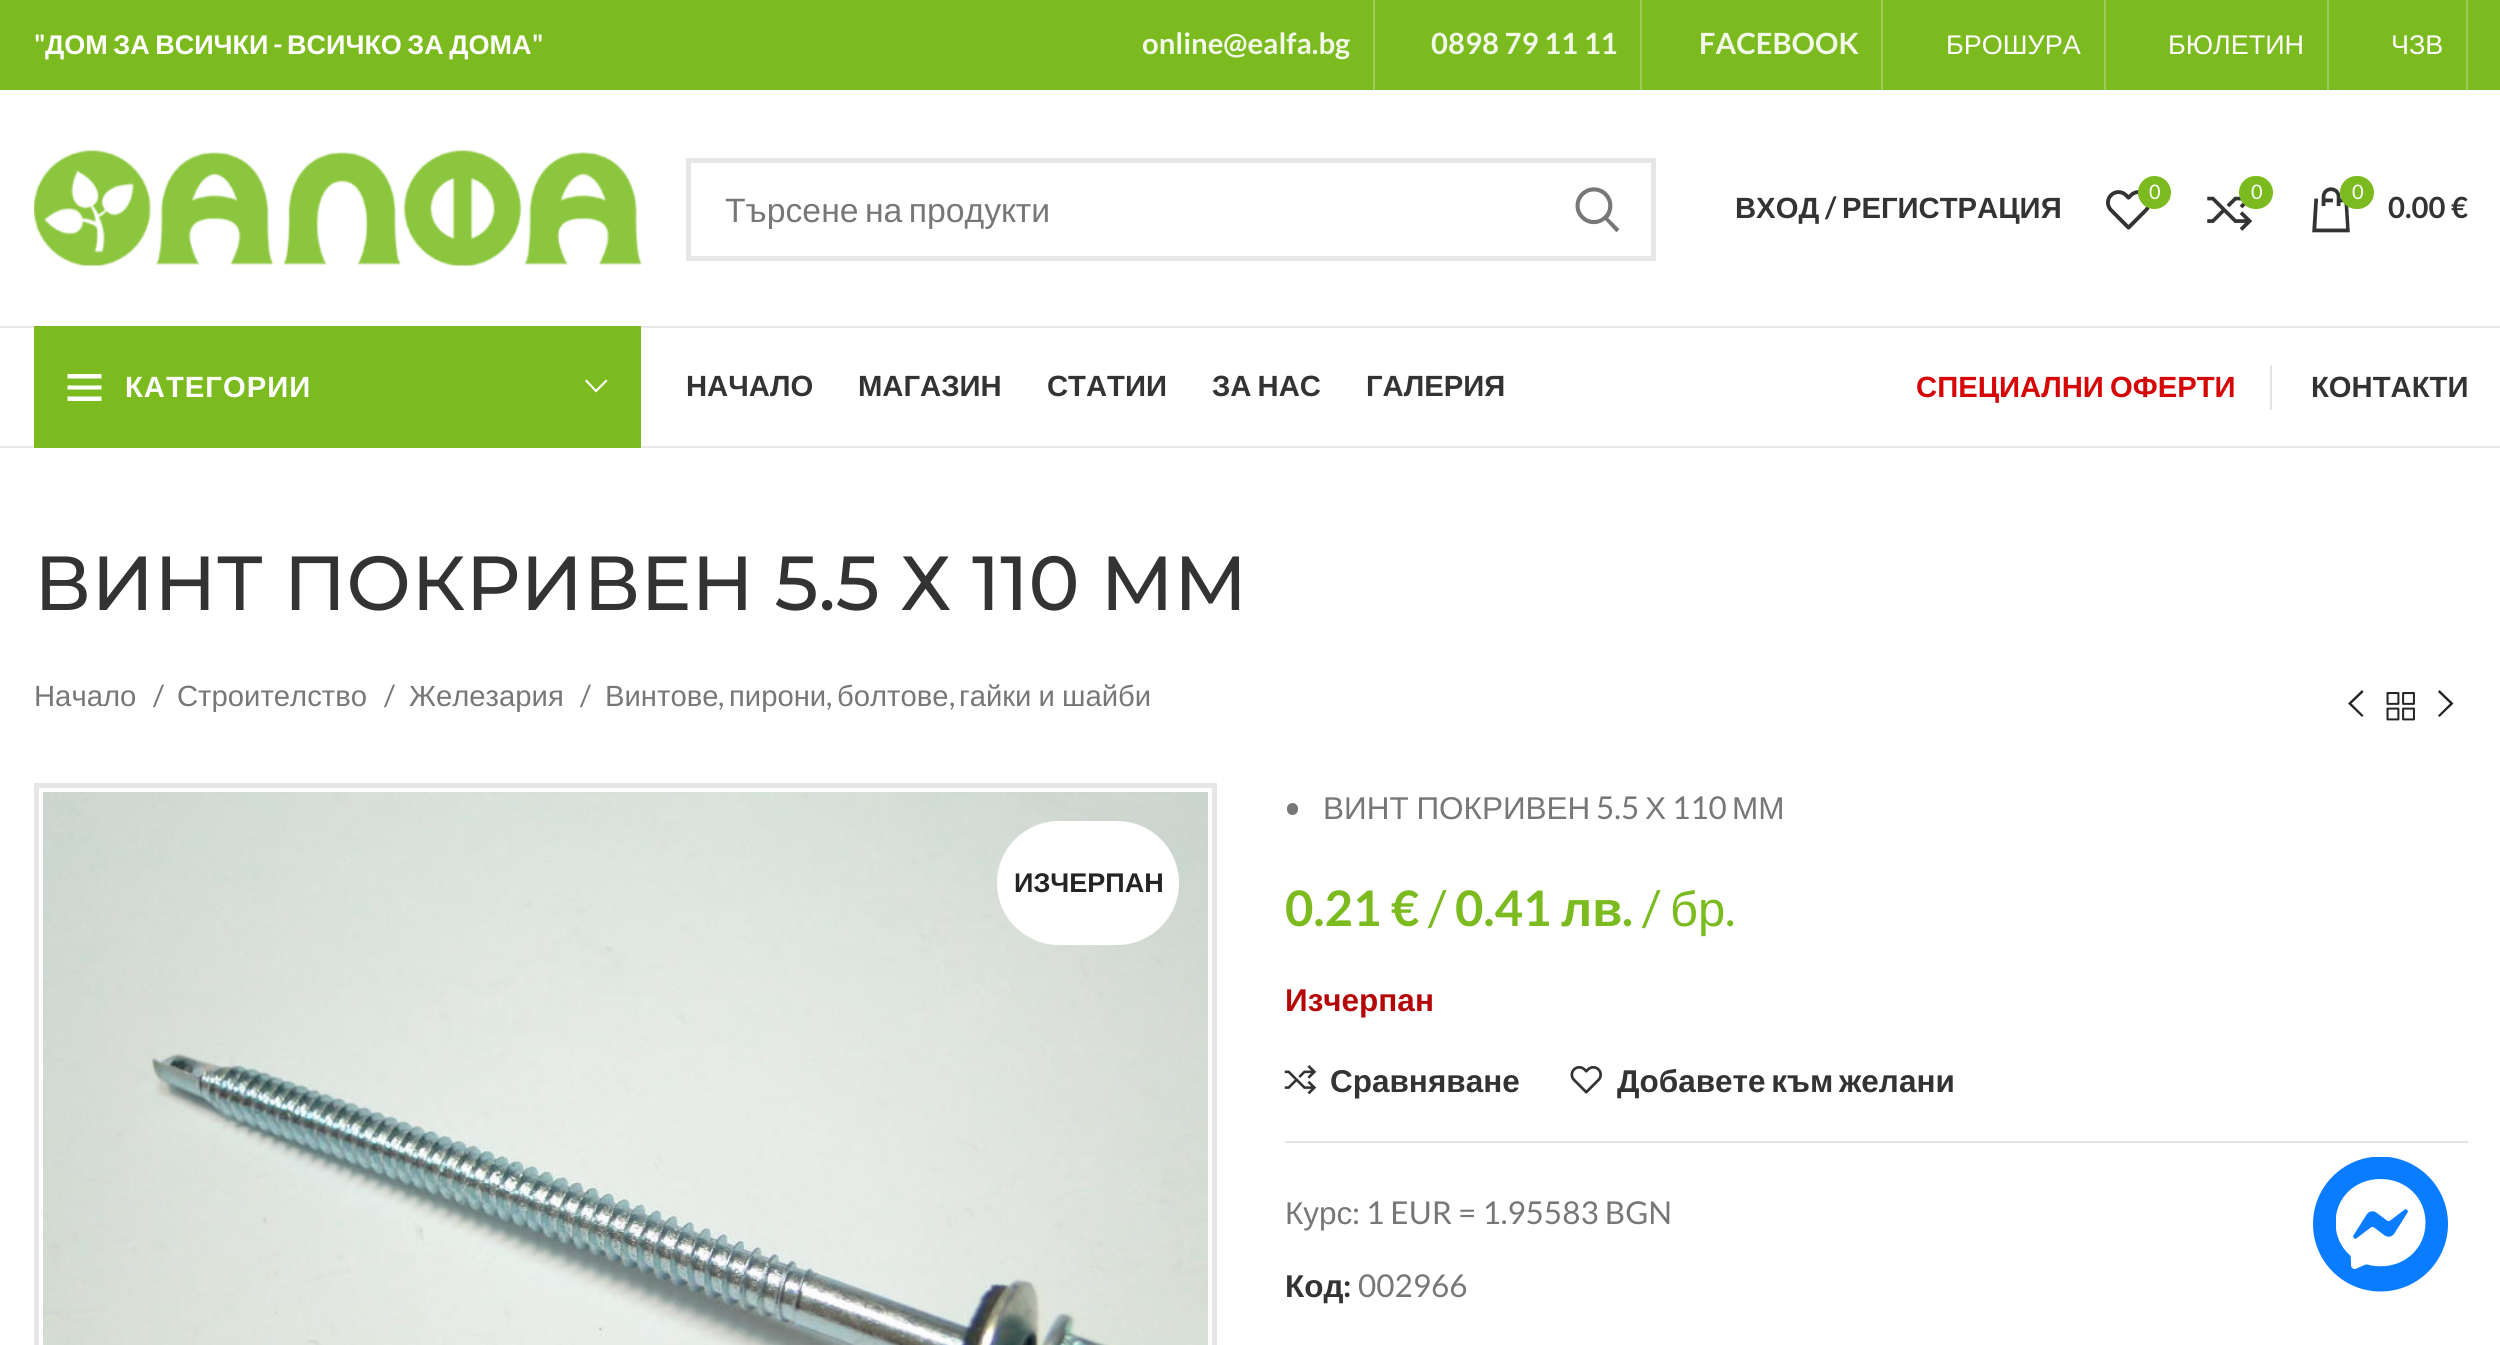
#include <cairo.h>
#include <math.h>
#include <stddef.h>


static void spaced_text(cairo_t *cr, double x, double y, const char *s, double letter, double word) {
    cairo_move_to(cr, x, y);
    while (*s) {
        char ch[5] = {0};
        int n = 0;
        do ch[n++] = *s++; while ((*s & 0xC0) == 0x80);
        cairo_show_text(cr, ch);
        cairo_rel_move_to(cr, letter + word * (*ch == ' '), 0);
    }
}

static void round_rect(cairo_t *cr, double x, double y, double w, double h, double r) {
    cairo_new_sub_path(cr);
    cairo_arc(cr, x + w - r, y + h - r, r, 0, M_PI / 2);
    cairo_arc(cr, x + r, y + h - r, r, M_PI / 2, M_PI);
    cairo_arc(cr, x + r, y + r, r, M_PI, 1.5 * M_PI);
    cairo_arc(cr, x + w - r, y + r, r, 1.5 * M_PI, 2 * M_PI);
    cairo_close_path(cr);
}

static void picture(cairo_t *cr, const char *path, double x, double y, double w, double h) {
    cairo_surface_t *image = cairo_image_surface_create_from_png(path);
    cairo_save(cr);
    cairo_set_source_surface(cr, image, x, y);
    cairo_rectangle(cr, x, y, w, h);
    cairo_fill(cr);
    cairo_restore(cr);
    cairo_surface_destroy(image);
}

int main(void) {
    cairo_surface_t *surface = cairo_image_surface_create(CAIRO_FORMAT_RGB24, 2500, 1345);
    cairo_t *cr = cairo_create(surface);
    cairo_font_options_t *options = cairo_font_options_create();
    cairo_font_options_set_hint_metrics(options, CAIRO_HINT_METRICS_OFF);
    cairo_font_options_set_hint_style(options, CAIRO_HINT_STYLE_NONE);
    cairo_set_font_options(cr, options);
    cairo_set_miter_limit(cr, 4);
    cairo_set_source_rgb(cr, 1, 1, 1);
    cairo_paint(cr);
    cairo_set_source_rgb(cr, 0.482, 0.733, 0.122);
    cairo_rectangle(cr, 0, 0, 2500, 90);
    cairo_fill(cr);
    cairo_select_font_face(cr, "Lato", CAIRO_FONT_SLANT_NORMAL, CAIRO_FONT_WEIGHT_BOLD);
    cairo_set_font_size(cr, 27);
    cairo_set_source_rgb(cr, 1, 1, 1);
    cairo_move_to(cr, 34, 54);
    cairo_show_text(cr, "\"");
    cairo_select_font_face(cr, "Liberation Sans", CAIRO_FONT_SLANT_NORMAL, CAIRO_FONT_WEIGHT_BOLD);
    spaced_text(cr, 45, 54, "ДОМ ЗА ВСИЧКИ", 0, -2);
    cairo_select_font_face(cr, "Lato", CAIRO_FONT_SLANT_NORMAL, CAIRO_FONT_WEIGHT_BOLD);
    cairo_move_to(cr, 273, 54);
    cairo_show_text(cr, "-");
    cairo_select_font_face(cr, "Liberation Sans", CAIRO_FONT_SLANT_NORMAL, CAIRO_FONT_WEIGHT_BOLD);
    spaced_text(cr, 287, 54, "ВСИЧКО ЗА ДОМА", 0, -2);
    cairo_select_font_face(cr, "Lato", CAIRO_FONT_SLANT_NORMAL, CAIRO_FONT_WEIGHT_BOLD);
    cairo_move_to(cr, 532, 54);
    cairo_show_text(cr, "\"");
    cairo_set_font_size(cr, 29.25);
    cairo_set_source_rgb(cr, 0.949, 0.973, 0.914);
    cairo_move_to(cr, 1142, 54);
    cairo_show_text(cr, "online@ealfa.bg");
    cairo_set_source_rgb(cr, 0.612, 0.8, 0.341);
    cairo_rectangle(cr, 1373, 0, 2, 90);
    cairo_fill(cr);
    cairo_set_source_rgb(cr, 0.949, 0.973, 0.914);
    cairo_move_to(cr, 1431, 54);
    cairo_show_text(cr, "0898 79 11 11");
    cairo_set_source_rgb(cr, 0.612, 0.8, 0.341);
    cairo_rectangle(cr, 1640, 0, 2, 90);
    cairo_fill(cr);
    cairo_set_source_rgb(cr, 0.949, 0.973, 0.914);
    cairo_move_to(cr, 1699, 54);
    cairo_show_text(cr, "FACEBOOK");
    cairo_set_source_rgb(cr, 0.612, 0.8, 0.341);
    cairo_rectangle(cr, 1881, 0, 2, 90);
    cairo_fill(cr);
    cairo_select_font_face(cr, "Liberation Sans", CAIRO_FONT_SLANT_NORMAL, CAIRO_FONT_WEIGHT_NORMAL);
    cairo_set_font_size(cr, 27);
    cairo_set_source_rgb(cr, 1, 1, 1);
    cairo_move_to(cr, 1946, 54);
    cairo_show_text(cr, "БРОШУРА");
    cairo_set_source_rgb(cr, 0.612, 0.8, 0.341);
    cairo_rectangle(cr, 2104, 0, 2, 90);
    cairo_fill(cr);
    cairo_set_source_rgb(cr, 1, 1, 1);
    cairo_move_to(cr, 2168, 54);
    cairo_show_text(cr, "БЮЛЕТИН");
    cairo_set_source_rgb(cr, 0.612, 0.8, 0.341);
    cairo_rectangle(cr, 2327, 0, 2, 90);
    cairo_fill(cr);
    cairo_set_source_rgb(cr, 1, 1, 1);
    cairo_move_to(cr, 2391, 54);
    cairo_show_text(cr, "ЧЗВ");
    cairo_set_source_rgb(cr, 0.612, 0.8, 0.341);
    cairo_rectangle(cr, 2466, 0, 2, 90);
    cairo_fill(cr);
    cairo_set_source_rgb(cr, 0.91, 0.91, 0.91);
    cairo_rectangle(cr, 0, 326, 2500, 2);
    cairo_fill(cr);
    picture(cr, "img1.png", 34, 150, 608, 116);
    cairo_rectangle(cr, 688.5, 160.5, 965, 98);
    cairo_set_source_rgb(cr, 0.902, 0.902, 0.902);
    cairo_set_line_width(cr, 5);
    cairo_stroke(cr);
    cairo_set_font_size(cr, 33.75);
    cairo_set_source_rgb(cr, 0.467, 0.467, 0.467);
    spaced_text(cr, 725, 222, "Търсене на продукти", 0, -3);
    picture(cr, "img2.png", 1575, 187, 45, 46);
    cairo_select_font_face(cr, "Liberation Sans", CAIRO_FONT_SLANT_NORMAL, CAIRO_FONT_WEIGHT_BOLD);
    cairo_set_font_size(cr, 29.25);
    cairo_set_source_rgb(cr, 0.2, 0.2, 0.2);
    cairo_move_to(cr, 1735, 218);
    cairo_show_text(cr, "ВХОД");
    cairo_select_font_face(cr, "Lato", CAIRO_FONT_SLANT_NORMAL, CAIRO_FONT_WEIGHT_BOLD);
    cairo_move_to(cr, 1825, 218);
    cairo_show_text(cr, "/");
    cairo_select_font_face(cr, "Liberation Sans", CAIRO_FONT_SLANT_NORMAL, CAIRO_FONT_WEIGHT_BOLD);
    cairo_move_to(cr, 1842, 218);
    cairo_show_text(cr, "РЕГИСТРАЦИЯ");
    picture(cr, "img3.png", 2106, 190, 44, 40);
    cairo_set_source_rgb(cr, 0.482, 0.733, 0.122);
    cairo_arc(cr, 2154.5, 192.5, 16.5, 0, 2 * M_PI);
    cairo_fill(cr);
    cairo_select_font_face(cr, "Lato", CAIRO_FONT_SLANT_NORMAL, CAIRO_FONT_WEIGHT_NORMAL);
    cairo_set_font_size(cr, 20);
    cairo_set_source_rgb(cr, 1, 1, 1);
    cairo_move_to(cr, 2149, 199);
    cairo_show_text(cr, "0");
    picture(cr, "img4.png", 2207, 191, 46, 40);
    cairo_set_source_rgb(cr, 0.482, 0.733, 0.122);
    round_rect(cr, 2239, 176, 34, 33, 16.5);
    cairo_fill(cr);
    cairo_set_source_rgb(cr, 1, 1, 1);
    cairo_move_to(cr, 2251, 199);
    cairo_show_text(cr, "0");
    picture(cr, "img5.png", 2312, 187, 38, 46);
    cairo_set_source_rgb(cr, 0.482, 0.733, 0.122);
    round_rect(cr, 2340, 176, 34, 33, 16.5);
    cairo_fill(cr);
    cairo_set_source_rgb(cr, 1, 1, 1);
    cairo_move_to(cr, 2352, 199);
    cairo_show_text(cr, "0");
    cairo_select_font_face(cr, "Lato", CAIRO_FONT_SLANT_NORMAL, CAIRO_FONT_WEIGHT_BOLD);
    cairo_set_font_size(cr, 29.25);
    cairo_set_source_rgb(cr, 0.2, 0.2, 0.2);
    cairo_move_to(cr, 2388, 218);
    cairo_show_text(cr, "0.00 €");
    cairo_set_source_rgb(cr, 0.91, 0.91, 0.91);
    cairo_rectangle(cr, 0, 446, 2500, 2);
    cairo_fill(cr);
    cairo_set_source_rgb(cr, 0.482, 0.733, 0.122);
    cairo_rectangle(cr, 34, 326, 607, 122);
    cairo_fill(cr);
    cairo_set_source_rgb(cr, 1, 1, 1);
    cairo_new_path(cr);
    cairo_move_to(cr, 67.5, 374);
    cairo_line_to(cr, 101.5, 374);
    cairo_line_to(cr, 101.5, 378.5);
    cairo_line_to(cr, 67.5, 378.5);
    cairo_close_path(cr);
    cairo_move_to(cr, 67.5, 385.5);
    cairo_line_to(cr, 101.5, 385.5);
    cairo_line_to(cr, 101.5, 389.5);
    cairo_line_to(cr, 67.5, 389.5);
    cairo_close_path(cr);
    cairo_move_to(cr, 67.5, 396.5);
    cairo_line_to(cr, 101.5, 396.5);
    cairo_line_to(cr, 101.5, 401);
    cairo_line_to(cr, 67.5, 401);
    cairo_close_path(cr);
    cairo_fill(cr);
    cairo_select_font_face(cr, "Liberation Sans", CAIRO_FONT_SLANT_NORMAL, CAIRO_FONT_WEIGHT_BOLD);
    spaced_text(cr, 125, 397, "КАТЕГОРИИ", 1, 0);
    cairo_new_path(cr);
    cairo_move_to(cr, 606, 379.5);
    cairo_line_to(cr, 607.5, 381);
    cairo_line_to(cr, 596, 392.5);
    cairo_line_to(cr, 585, 381);
    cairo_line_to(cr, 586.5, 379.5);
    cairo_line_to(cr, 596, 389.5);
    cairo_close_path(cr);
    cairo_fill(cr);
    cairo_set_source_rgb(cr, 0.2, 0.2, 0.2);
    cairo_move_to(cr, 686, 396);
    cairo_show_text(cr, "НАЧАЛО");
    cairo_move_to(cr, 858, 396);
    cairo_show_text(cr, "МАГАЗИН");
    cairo_move_to(cr, 1047, 396);
    cairo_show_text(cr, "СТАТИИ");
    spaced_text(cr, 1212, 396, "ЗА НАС", 0, -2);
    cairo_move_to(cr, 1366, 396);
    cairo_show_text(cr, "ГАЛЕРИЯ");
    cairo_set_source_rgb(cr, 0.894, 0.894, 0.894);
    cairo_rectangle(cr, 2270, 365, 2, 45);
    cairo_fill(cr);
    cairo_set_source_rgb(cr, 0.839, 0.024, 0.024);
    spaced_text(cr, 1916, 397, "СПЕЦИАЛНИ ОФЕРТИ", 0, -2);
    cairo_set_source_rgb(cr, 0.2, 0.2, 0.2);
    cairo_move_to(cr, 2311, 397);
    cairo_show_text(cr, "КОНТАКТИ");
    cairo_select_font_face(cr, "Montserrat Medium", CAIRO_FONT_SLANT_NORMAL, CAIRO_FONT_WEIGHT_NORMAL);
    cairo_set_font_size(cr, 76.5);
    cairo_move_to(cr, 34, 610);
    cairo_show_text(cr, "ВИНТ ПОКРИВЕН 5.5 Х 110 ММ");
    cairo_select_font_face(cr, "Liberation Sans", CAIRO_FONT_SLANT_NORMAL, CAIRO_FONT_WEIGHT_NORMAL);
    cairo_set_font_size(cr, 29.25);
    cairo_set_source_rgb(cr, 0.467, 0.467, 0.467);
    cairo_move_to(cr, 34, 706);
    cairo_show_text(cr, "Начало");
    cairo_select_font_face(cr, "Lato", CAIRO_FONT_SLANT_NORMAL, CAIRO_FONT_WEIGHT_NORMAL);
    cairo_move_to(cr, 153, 706);
    cairo_show_text(cr, "/");
    cairo_select_font_face(cr, "Liberation Sans", CAIRO_FONT_SLANT_NORMAL, CAIRO_FONT_WEIGHT_NORMAL);
    cairo_move_to(cr, 177, 706);
    cairo_show_text(cr, "Строителство");
    cairo_select_font_face(cr, "Lato", CAIRO_FONT_SLANT_NORMAL, CAIRO_FONT_WEIGHT_NORMAL);
    cairo_move_to(cr, 384, 706);
    cairo_show_text(cr, "/");
    cairo_select_font_face(cr, "Liberation Sans", CAIRO_FONT_SLANT_NORMAL, CAIRO_FONT_WEIGHT_NORMAL);
    cairo_move_to(cr, 409, 706);
    cairo_show_text(cr, "Железария");
    cairo_select_font_face(cr, "Lato", CAIRO_FONT_SLANT_NORMAL, CAIRO_FONT_WEIGHT_NORMAL);
    cairo_move_to(cr, 580, 706);
    cairo_show_text(cr, "/");
    cairo_select_font_face(cr, "Liberation Sans", CAIRO_FONT_SLANT_NORMAL, CAIRO_FONT_WEIGHT_NORMAL);
    cairo_move_to(cr, 605, 706);
    cairo_show_text(cr, "Винтове");
    cairo_select_font_face(cr, "Lato", CAIRO_FONT_SLANT_NORMAL, CAIRO_FONT_WEIGHT_NORMAL);
    cairo_move_to(cr, 718, 706);
    cairo_show_text(cr, ",");
    cairo_select_font_face(cr, "Liberation Sans", CAIRO_FONT_SLANT_NORMAL, CAIRO_FONT_WEIGHT_NORMAL);
    cairo_move_to(cr, 729, 706);
    cairo_show_text(cr, "пирони");
    cairo_select_font_face(cr, "Lato", CAIRO_FONT_SLANT_NORMAL, CAIRO_FONT_WEIGHT_NORMAL);
    cairo_move_to(cr, 826, 706);
    cairo_show_text(cr, ",");
    cairo_select_font_face(cr, "Liberation Sans", CAIRO_FONT_SLANT_NORMAL, CAIRO_FONT_WEIGHT_NORMAL);
    cairo_move_to(cr, 837, 706);
    cairo_show_text(cr, "болтове");
    cairo_select_font_face(cr, "Lato", CAIRO_FONT_SLANT_NORMAL, CAIRO_FONT_WEIGHT_NORMAL);
    cairo_move_to(cr, 949, 706);
    cairo_show_text(cr, ",");
    cairo_select_font_face(cr, "Liberation Sans", CAIRO_FONT_SLANT_NORMAL, CAIRO_FONT_WEIGHT_NORMAL);
    spaced_text(cr, 959, 706, "гайки и шайби", 0, -1);
    cairo_set_source_rgb(cr, 0.141, 0.141, 0.141);
    cairo_new_path(cr);
    cairo_move_to(cr, 2363.5, 692);
    cairo_line_to(cr, 2351.5, 703.5);
    cairo_line_to(cr, 2363.5, 715.5);
    cairo_line_to(cr, 2362, 717);
    cairo_line_to(cr, 2348, 703.5);
    cairo_line_to(cr, 2362, 690);
    cairo_close_path(cr);
    cairo_fill(cr);
    picture(cr, "img6.png", 2386, 692, 29, 29);
    cairo_new_path(cr);
    cairo_move_to(cr, 2439.5, 690);
    cairo_line_to(cr, 2453.5, 703.5);
    cairo_line_to(cr, 2439.5, 717);
    cairo_line_to(cr, 2438, 715.5);
    cairo_line_to(cr, 2450, 703.5);
    cairo_line_to(cr, 2438, 692);
    cairo_close_path(cr);
    cairo_fill(cr);
    cairo_rectangle(cr, 36.5, 785.5, 1178, 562);
    cairo_set_source_rgb(cr, 0.902, 0.902, 0.902);
    cairo_stroke(cr);
    picture(cr, "img7.png", 43, 792, 1165, 553);
    cairo_set_source_rgb(cr, 1, 1, 1);
    round_rect(cr, 997, 821, 182, 124, 62);
    cairo_fill(cr);
    cairo_select_font_face(cr, "Liberation Sans", CAIRO_FONT_SLANT_NORMAL, CAIRO_FONT_WEIGHT_BOLD);
    cairo_set_font_size(cr, 27);
    cairo_set_source_rgb(cr, 0.141, 0.141, 0.141);
    cairo_move_to(cr, 1014, 892);
    cairo_show_text(cr, "ИЗЧЕРПАН");
    cairo_set_source_rgb(cr, 0.467, 0.467, 0.467);
    round_rect(cr, 1287, 803, 11, 12, 5.5);
    cairo_fill(cr);
    cairo_select_font_face(cr, "Liberation Sans", CAIRO_FONT_SLANT_NORMAL, CAIRO_FONT_WEIGHT_NORMAL);
    cairo_set_font_size(cr, 31.5);
    spaced_text(cr, 1323, 819, "ВИНТ ПОКРИВЕН", 0, -1);
    cairo_select_font_face(cr, "Lato", CAIRO_FONT_SLANT_NORMAL, CAIRO_FONT_WEIGHT_NORMAL);
    cairo_move_to(cr, 1596, 819);
    cairo_show_text(cr, "5.5");
    cairo_select_font_face(cr, "Liberation Sans", CAIRO_FONT_SLANT_NORMAL, CAIRO_FONT_WEIGHT_NORMAL);
    cairo_move_to(cr, 1645, 819);
    cairo_show_text(cr, "Х");
    cairo_select_font_face(cr, "Lato", CAIRO_FONT_SLANT_NORMAL, CAIRO_FONT_WEIGHT_NORMAL);
    cairo_move_to(cr, 1672, 819);
    cairo_show_text(cr, "110");
    cairo_select_font_face(cr, "Liberation Sans", CAIRO_FONT_SLANT_NORMAL, CAIRO_FONT_WEIGHT_NORMAL);
    cairo_move_to(cr, 1732, 819);
    cairo_show_text(cr, "ММ");
    cairo_select_font_face(cr, "Lato", CAIRO_FONT_SLANT_NORMAL, CAIRO_FONT_WEIGHT_BOLD);
    cairo_set_font_size(cr, 49);
    cairo_set_source_rgb(cr, 0.482, 0.733, 0.122);
    cairo_move_to(cr, 1285, 926);
    cairo_show_text(cr, "0.21 €");
    cairo_select_font_face(cr, "Lato", CAIRO_FONT_SLANT_NORMAL, CAIRO_FONT_WEIGHT_NORMAL);
    cairo_move_to(cr, 1428, 926);
    cairo_show_text(cr, "/");
    cairo_select_font_face(cr, "Lato", CAIRO_FONT_SLANT_NORMAL, CAIRO_FONT_WEIGHT_BOLD);
    cairo_move_to(cr, 1455, 926);
    cairo_show_text(cr, "0.41");
    cairo_select_font_face(cr, "Liberation Sans", CAIRO_FONT_SLANT_NORMAL, CAIRO_FONT_WEIGHT_BOLD);
    cairo_move_to(cr, 1561, 926);
    cairo_show_text(cr, "лв");
    cairo_select_font_face(cr, "Lato", CAIRO_FONT_SLANT_NORMAL, CAIRO_FONT_WEIGHT_BOLD);
    cairo_move_to(cr, 1622, 926);
    cairo_show_text(cr, ".");
    cairo_select_font_face(cr, "Lato", CAIRO_FONT_SLANT_NORMAL, CAIRO_FONT_WEIGHT_NORMAL);
    cairo_move_to(cr, 1642, 926);
    cairo_show_text(cr, "/");
    cairo_select_font_face(cr, "Liberation Sans", CAIRO_FONT_SLANT_NORMAL, CAIRO_FONT_WEIGHT_NORMAL);
    cairo_move_to(cr, 1670, 926);
    cairo_show_text(cr, "бр");
    cairo_select_font_face(cr, "Lato", CAIRO_FONT_SLANT_NORMAL, CAIRO_FONT_WEIGHT_NORMAL);
    cairo_move_to(cr, 1725, 926);
    cairo_show_text(cr, ".");
    cairo_select_font_face(cr, "Liberation Sans", CAIRO_FONT_SLANT_NORMAL, CAIRO_FONT_WEIGHT_BOLD);
    cairo_set_font_size(cr, 31.5);
    cairo_set_source_rgb(cr, 0.71, 0.031, 0.031);
    cairo_move_to(cr, 1285, 1011);
    cairo_show_text(cr, "Изчерпан");
    picture(cr, "img8.png", 1284, 1065, 33, 30);
    cairo_set_source_rgb(cr, 0.2, 0.2, 0.2);
    cairo_move_to(cr, 1330, 1092);
    cairo_show_text(cr, "Сравняване");
    picture(cr, "img9.png", 1570, 1065, 32, 29);
    spaced_text(cr, 1617, 1092, "Добавете към желани", 0, -3);
    cairo_set_source_rgb(cr, 0.894, 0.894, 0.894);
    cairo_rectangle(cr, 1285, 1141, 1183, 2);
    cairo_fill(cr);
    cairo_select_font_face(cr, "Liberation Sans", CAIRO_FONT_SLANT_NORMAL, CAIRO_FONT_WEIGHT_NORMAL);
    cairo_set_source_rgb(cr, 0.467, 0.467, 0.467);
    cairo_move_to(cr, 1285, 1224);
    cairo_show_text(cr, "Курс");
    cairo_select_font_face(cr, "Lato", CAIRO_FONT_SLANT_NORMAL, CAIRO_FONT_WEIGHT_NORMAL);
    cairo_move_to(cr, 1352, 1224);
    cairo_show_text(cr, ": 1 EUR = 1.95583 BGN");
    cairo_select_font_face(cr, "Liberation Sans", CAIRO_FONT_SLANT_NORMAL, CAIRO_FONT_WEIGHT_BOLD);
    cairo_set_source_rgb(cr, 0.2, 0.2, 0.2);
    cairo_move_to(cr, 1285, 1297);
    cairo_show_text(cr, "Код");
    cairo_select_font_face(cr, "Lato", CAIRO_FONT_SLANT_NORMAL, CAIRO_FONT_WEIGHT_BOLD);
    cairo_move_to(cr, 1343, 1297);
    cairo_show_text(cr, ":");
    cairo_select_font_face(cr, "Lato", CAIRO_FONT_SLANT_NORMAL, CAIRO_FONT_WEIGHT_NORMAL);
    cairo_set_source_rgb(cr, 0.467, 0.467, 0.467);
    cairo_move_to(cr, 1358, 1297);
    cairo_show_text(cr, "002966");
    picture(cr, "img10.png", 2313, 1157, 135, 135);
    cairo_surface_write_to_png(surface, "page.png");
    cairo_font_options_destroy(options);
    cairo_destroy(cr);
    cairo_surface_destroy(surface);
    return 0;
}
